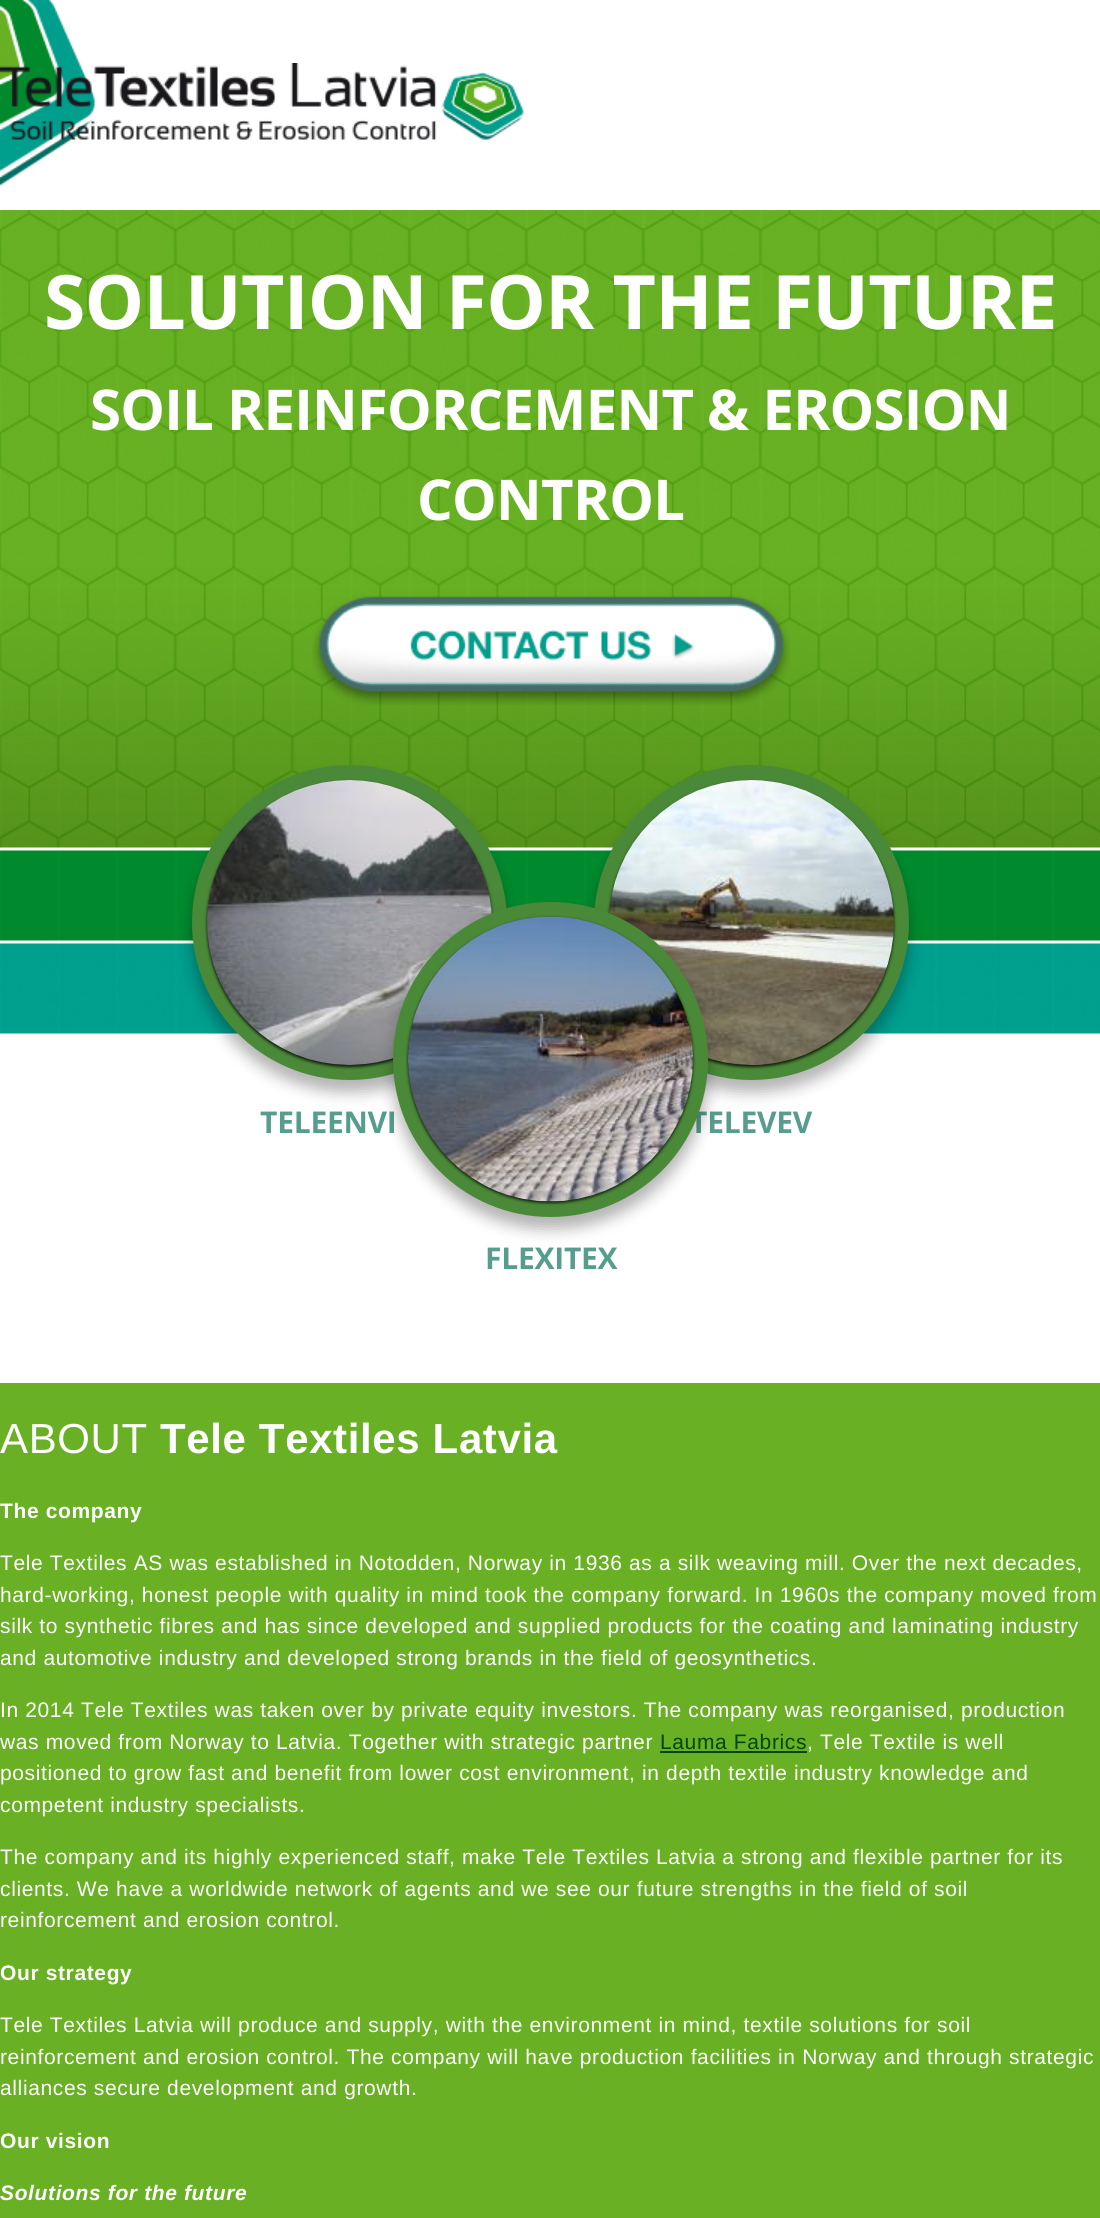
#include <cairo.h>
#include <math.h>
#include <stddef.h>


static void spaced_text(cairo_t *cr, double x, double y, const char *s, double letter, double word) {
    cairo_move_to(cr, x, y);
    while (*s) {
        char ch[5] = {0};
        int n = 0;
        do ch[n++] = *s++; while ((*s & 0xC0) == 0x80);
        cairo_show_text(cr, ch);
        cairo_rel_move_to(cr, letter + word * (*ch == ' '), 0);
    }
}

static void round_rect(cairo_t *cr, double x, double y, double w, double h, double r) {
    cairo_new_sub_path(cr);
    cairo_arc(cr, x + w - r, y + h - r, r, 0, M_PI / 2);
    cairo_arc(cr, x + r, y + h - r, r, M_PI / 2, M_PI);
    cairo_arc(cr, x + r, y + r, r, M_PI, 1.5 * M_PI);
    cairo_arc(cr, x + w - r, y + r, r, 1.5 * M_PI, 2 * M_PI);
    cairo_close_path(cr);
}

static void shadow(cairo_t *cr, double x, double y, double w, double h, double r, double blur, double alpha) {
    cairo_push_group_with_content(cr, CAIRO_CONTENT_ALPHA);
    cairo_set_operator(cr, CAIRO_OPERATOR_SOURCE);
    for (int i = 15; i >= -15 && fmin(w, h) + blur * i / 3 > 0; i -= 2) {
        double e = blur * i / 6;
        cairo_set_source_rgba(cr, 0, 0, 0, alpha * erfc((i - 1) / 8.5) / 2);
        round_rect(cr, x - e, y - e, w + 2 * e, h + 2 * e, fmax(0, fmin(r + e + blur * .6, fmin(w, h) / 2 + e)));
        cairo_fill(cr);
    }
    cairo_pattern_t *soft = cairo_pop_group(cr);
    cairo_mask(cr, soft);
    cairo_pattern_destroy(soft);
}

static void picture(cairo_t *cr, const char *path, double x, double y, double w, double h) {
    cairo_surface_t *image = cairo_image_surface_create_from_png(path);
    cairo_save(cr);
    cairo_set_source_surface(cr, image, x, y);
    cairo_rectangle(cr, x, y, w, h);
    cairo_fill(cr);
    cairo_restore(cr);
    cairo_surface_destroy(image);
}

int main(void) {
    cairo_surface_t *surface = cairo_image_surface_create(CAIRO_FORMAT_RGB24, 1100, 2218);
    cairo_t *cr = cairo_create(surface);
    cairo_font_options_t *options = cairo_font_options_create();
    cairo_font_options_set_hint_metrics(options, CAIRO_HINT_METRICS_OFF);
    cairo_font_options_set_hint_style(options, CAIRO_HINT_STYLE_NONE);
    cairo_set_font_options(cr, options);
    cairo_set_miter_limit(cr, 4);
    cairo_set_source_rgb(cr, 1, 1, 1);
    cairo_paint(cr);
    picture(cr, "img1.png", 0, 0, 96, 186);
    picture(cr, "img2.png", 0, 63, 524, 77);
    picture(cr, "img3.png", 0, 210, 1100, 824);
    cairo_select_font_face(cr, "Open Sans", CAIRO_FONT_SLANT_NORMAL, CAIRO_FONT_WEIGHT_BOLD);
    cairo_set_font_size(cr, 75);
    cairo_set_source_rgb(cr, 1, 1, 1);
    spaced_text(cr, 44, 329, "SOLUTION FOR THE FUTURE", -0.75, 0);
    cairo_set_font_size(cr, 56.25);
    spaced_text(cr, 90, 430, "SOIL REINFORCEMENT & EROSION", -0.75, 0);
    spaced_text(cr, 417, 520, "CONTROL", -0.75, 0);
    picture(cr, "img4.png", 312, 595, 478, 110);
    cairo_set_source_rgb(cr, 0, 0, 0);
    shadow(cr, 192, 777, 315, 315, 157.5, 7.5, 0.3);
    cairo_arc(cr, 349.5, 922.5, 142.5, 0, 2 * M_PI);
    cairo_set_source_rgb(cr, 0.29, 0.537, 0.22);
    cairo_set_line_width(cr, 30);
    cairo_stroke(cr);
    cairo_set_source_rgb(cr, 0, 0, 0);
    shadow(cr, 207, 782, 285, 285, 142.5, 1.5, 0.8);
    picture(cr, "img5.png", 207, 780, 285, 285);
    cairo_set_font_size(cr, 30);
    cairo_set_source_rgb(cr, 0.337, 0.616, 0.553);
    spaced_text(cr, 260, 1133, "TELEENVI", -0.25, 0);
    cairo_set_source_rgb(cr, 0, 0, 0);
    shadow(cr, 594, 777, 315, 315, 157.5, 7.5, 0.3);
    cairo_arc(cr, 751.5, 922.5, 142.5, 0, 2 * M_PI);
    cairo_set_source_rgb(cr, 0.29, 0.537, 0.22);
    cairo_stroke(cr);
    cairo_set_source_rgb(cr, 0, 0, 0);
    shadow(cr, 609, 782, 285, 285, 142.5, 1.5, 0.8);
    picture(cr, "img6.png", 609, 780, 285, 285);
    cairo_set_source_rgb(cr, 0.337, 0.616, 0.553);
    spaced_text(cr, 690, 1133, "TELEVEV", -0.25, 0);
    cairo_set_source_rgb(cr, 0, 0, 0);
    shadow(cr, 393, 914, 315, 315, 157.5, 7.5, 0.3);
    cairo_arc(cr, 550.5, 1059.5, 142.5, 0, 2 * M_PI);
    cairo_set_source_rgb(cr, 0.29, 0.537, 0.22);
    cairo_stroke(cr);
    cairo_set_source_rgb(cr, 0, 0, 0);
    shadow(cr, 408, 918, 285, 285, 142.5, 1.5, 0.8);
    picture(cr, "img7.png", 408, 916, 285, 286);
    cairo_set_source_rgb(cr, 0.337, 0.616, 0.553);
    spaced_text(cr, 485, 1269, "FLEXITEX", -0.25, 0);
    cairo_set_source_rgb(cr, 0.412, 0.69, 0.141);
    cairo_rectangle(cr, 0, 1383, 1100, 835);
    cairo_fill(cr);
    cairo_select_font_face(cr, "Liberation Sans", CAIRO_FONT_SLANT_NORMAL, CAIRO_FONT_WEIGHT_NORMAL);
    cairo_set_font_size(cr, 42);
    cairo_set_source_rgb(cr, 1, 1, 1);
    spaced_text(cr, 0, 1453, "ABOUT", 0.63, 0);
    cairo_select_font_face(cr, "Liberation Sans", CAIRO_FONT_SLANT_NORMAL, CAIRO_FONT_WEIGHT_BOLD);
    spaced_text(cr, 160, 1453, "Tele Textiles Latvia", 0.63, 0);
    cairo_set_font_size(cr, 21);
    spaced_text(cr, 0, 1518, "The company", 0.63, 0);
    cairo_select_font_face(cr, "Liberation Sans", CAIRO_FONT_SLANT_NORMAL, CAIRO_FONT_WEIGHT_NORMAL);
    spaced_text(cr, 0, 1570, "Tele Textiles AS was established in Notodden, Norway in 1936 as a silk weaving mill. Over the next decades,", 0.63, 0);
    spaced_text(cr, 0, 1602, "hard-working, honest people with quality in mind took the company forward. In 1960s the company moved from", 0.63, 0);
    spaced_text(cr, 0, 1633, "silk to synthetic fibres and has since developed and supplied products for the coating and laminating industry", 0.63, 0);
    spaced_text(cr, 0, 1665, "and automotive industry and developed strong brands in the field of geosynthetics.", 0.63, 0);
    spaced_text(cr, 0, 1717, "In 2014 Tele Textiles was taken over by private equity investors. The company was reorganised, production", 0.63, 0);
    spaced_text(cr, 0, 1749, "was moved from Norway to Latvia. Together with strategic partner", 0.63, 0);
    cairo_set_source_rgb(cr, 0.004, 0.278, 0);
    spaced_text(cr, 660, 1749, "Lauma Fabrics", 0.63, 0);
    cairo_rectangle(cr, 660, 1751, 147, 2);
    cairo_fill(cr);
    cairo_set_source_rgb(cr, 1, 1, 1);
    spaced_text(cr, 807, 1749, ", Tele Textile is well", 0.63, 0);
    spaced_text(cr, 0, 1780, "positioned to grow fast and benefit from lower cost environment, in depth textile industry knowledge and", 0.63, 0);
    spaced_text(cr, 0, 1812, "competent industry specialists.", 0.63, 0);
    spaced_text(cr, 0, 1864, "The company and its highly experienced staff, make Tele Textiles Latvia a strong and flexible partner for its", 0.63, 0);
    spaced_text(cr, 0, 1896, "clients. We have a worldwide network of agents and we see our future strengths in the field of soil", 0.63, 0);
    spaced_text(cr, 0, 1927, "reinforcement and erosion control.", 0.63, 0);
    cairo_select_font_face(cr, "Liberation Sans", CAIRO_FONT_SLANT_NORMAL, CAIRO_FONT_WEIGHT_BOLD);
    spaced_text(cr, 0, 1980, "Our strategy", 0.63, 0);
    cairo_select_font_face(cr, "Liberation Sans", CAIRO_FONT_SLANT_NORMAL, CAIRO_FONT_WEIGHT_NORMAL);
    spaced_text(cr, 0, 2032, "Tele Textiles Latvia will produce and supply, with the environment in mind, textile solutions for soil", 0.63, 0);
    spaced_text(cr, 0, 2064, "reinforcement and erosion control. The company will have production facilities in Norway and through strategic", 0.63, 0);
    spaced_text(cr, 0, 2095, "alliances secure development and growth.", 0.63, 0);
    cairo_select_font_face(cr, "Liberation Sans", CAIRO_FONT_SLANT_NORMAL, CAIRO_FONT_WEIGHT_BOLD);
    spaced_text(cr, 0, 2148, "Our vision", 0.63, 0);
    cairo_select_font_face(cr, "Liberation Sans", CAIRO_FONT_SLANT_ITALIC, CAIRO_FONT_WEIGHT_BOLD);
    spaced_text(cr, 0, 2200, "Solutions for the future", 0.63, 0);
    cairo_surface_write_to_png(surface, "page.png");
    cairo_font_options_destroy(options);
    cairo_destroy(cr);
    cairo_surface_destroy(surface);
    return 0;
}
